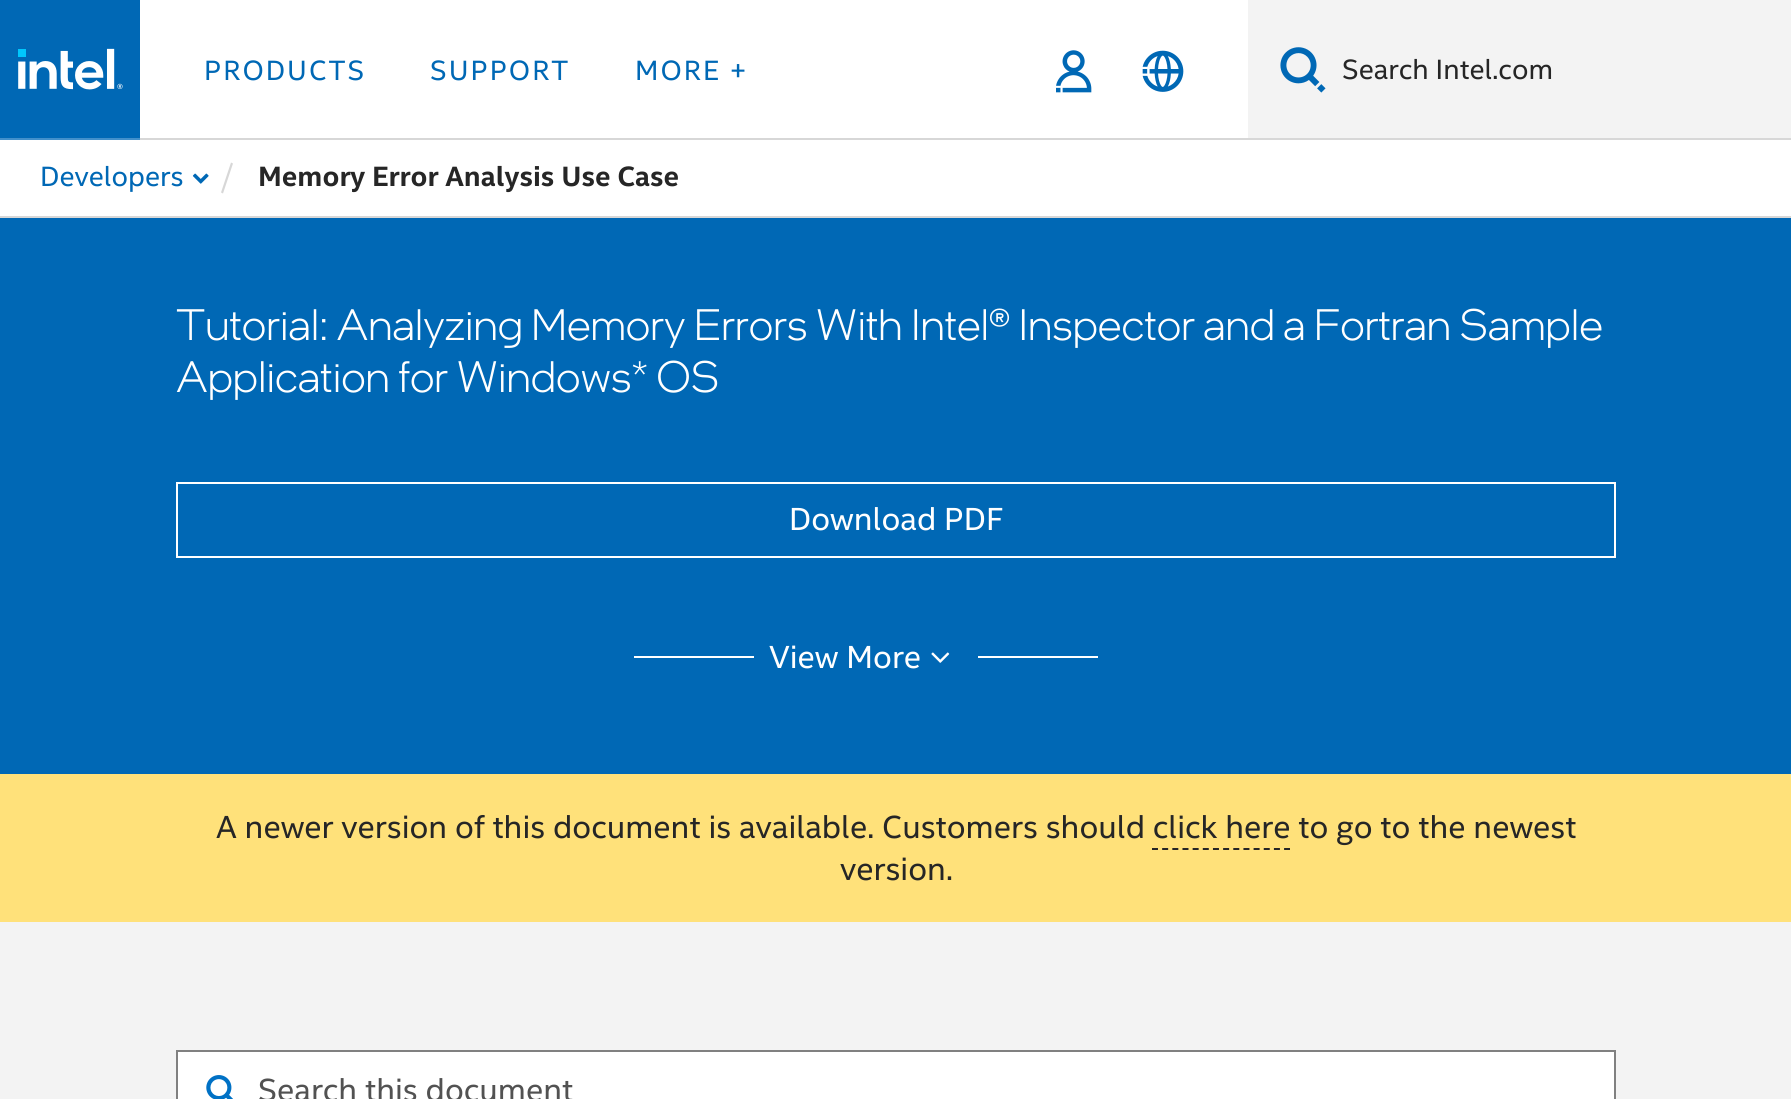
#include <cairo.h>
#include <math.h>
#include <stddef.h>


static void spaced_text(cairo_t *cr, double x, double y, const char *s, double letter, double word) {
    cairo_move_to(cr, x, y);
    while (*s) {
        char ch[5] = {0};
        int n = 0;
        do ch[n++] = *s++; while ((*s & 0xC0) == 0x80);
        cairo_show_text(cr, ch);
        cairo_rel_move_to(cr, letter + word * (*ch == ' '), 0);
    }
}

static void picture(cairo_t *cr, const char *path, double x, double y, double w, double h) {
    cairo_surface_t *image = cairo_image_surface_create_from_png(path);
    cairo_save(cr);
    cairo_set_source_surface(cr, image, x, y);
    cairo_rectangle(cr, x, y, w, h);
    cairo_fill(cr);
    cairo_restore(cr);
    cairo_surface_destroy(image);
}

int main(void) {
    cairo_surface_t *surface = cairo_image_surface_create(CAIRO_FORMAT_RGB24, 1791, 1099);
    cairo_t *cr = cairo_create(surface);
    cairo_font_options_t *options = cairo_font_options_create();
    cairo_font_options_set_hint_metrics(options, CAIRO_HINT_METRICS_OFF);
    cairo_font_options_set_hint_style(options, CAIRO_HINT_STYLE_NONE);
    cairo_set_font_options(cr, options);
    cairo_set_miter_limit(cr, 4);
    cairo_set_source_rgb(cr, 1, 1, 1);
    cairo_paint(cr);
    cairo_set_source_rgb(cr, 0.843, 0.843, 0.843);
    cairo_rectangle(cr, 140, 138, 1651, 2);
    cairo_fill(cr);
    cairo_set_source_rgb(cr, 0, 0.408, 0.71);
    cairo_rectangle(cr, 0, 0, 140, 138);
    cairo_fill(cr);
    picture(cr, "img1.png", 18, 48, 105, 42);
    cairo_set_source_rgb(cr, 0.259, 0.565, 0.796);
    cairo_rectangle(cr, 0, 138, 140, 2);
    cairo_fill(cr);
    cairo_select_font_face(cr, "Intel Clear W", CAIRO_FONT_SLANT_NORMAL, CAIRO_FONT_WEIGHT_NORMAL);
    cairo_set_font_size(cr, 28);
    cairo_set_source_rgb(cr, 0, 0.408, 0.71);
    spaced_text(cr, 204, 80, "PRODUCTS", 2, 0);
    spaced_text(cr, 430, 80, "SUPPORT", 2, 0);
    spaced_text(cr, 635, 80, "MORE +", 2, 0);
    picture(cr, "img2.png", 1056, 50, 36, 43);
    picture(cr, "img3.png", 1142, 50, 42, 42);
    cairo_set_source_rgb(cr, 0.953, 0.953, 0.953);
    cairo_rectangle(cr, 1248, 0, 543, 138);
    cairo_fill(cr);
    picture(cr, "img4.png", 1280, 47, 46, 46);
    cairo_set_source_rgb(cr, 0.149, 0.149, 0.149);
    cairo_move_to(cr, 1342, 79);
    cairo_show_text(cr, "Search Intel.com");
    cairo_set_source_rgb(cr, 0.843, 0.843, 0.843);
    cairo_rectangle(cr, 0, 216, 1791, 2);
    cairo_fill(cr);
    cairo_set_source_rgb(cr, 0, 0.408, 0.71);
    cairo_move_to(cr, 40, 186);
    cairo_show_text(cr, "Developers");
    picture(cr, "img5.png", 192, 173, 17, 11);
    cairo_set_source_rgb(cr, 0.843, 0.843, 0.843);
    cairo_new_path(cr);
    cairo_move_to(cr, 231, 162.5);
    cairo_line_to(cr, 233, 163.5);
    cairo_line_to(cr, 223, 193.5);
    cairo_line_to(cr, 221, 192.5);
    cairo_close_path(cr);
    cairo_fill(cr);
    cairo_select_font_face(cr, "Intel Clear W", CAIRO_FONT_SLANT_NORMAL, CAIRO_FONT_WEIGHT_BOLD);
    cairo_set_source_rgb(cr, 0.149, 0.149, 0.149);
    cairo_move_to(cr, 258, 186);
    cairo_show_text(cr, "Memory Error Analysis Use Case");
    cairo_set_source_rgb(cr, 0, 0.408, 0.71);
    cairo_rectangle(cr, 0, 218, 1791, 556);
    cairo_fill(cr);
    cairo_select_font_face(cr, "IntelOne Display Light", CAIRO_FONT_SLANT_NORMAL, CAIRO_FONT_WEIGHT_NORMAL);
    cairo_set_font_size(cr, 44);
    cairo_set_source_rgb(cr, 1, 1, 1);
    cairo_move_to(cr, 176, 340);
    cairo_show_text(cr, "Tutorial: Analyzing Memory Errors With Intel® Inspector and a Fortran Sample");
    cairo_move_to(cr, 176, 392);
    cairo_show_text(cr, "Application for Windows* OS");
    cairo_rectangle(cr, 177, 483, 1438, 74);
    cairo_stroke(cr);
    cairo_select_font_face(cr, "Intel Clear W", CAIRO_FONT_SLANT_NORMAL, CAIRO_FONT_WEIGHT_NORMAL);
    cairo_set_font_size(cr, 32);
    cairo_move_to(cr, 789, 530);
    cairo_show_text(cr, "Download PDF");
    cairo_rectangle(cr, 634, 656, 120, 2);
    cairo_fill(cr);
    cairo_move_to(cr, 769, 668);
    cairo_show_text(cr, "View More");
    picture(cr, "img6.png", 931, 652, 19, 11);
    cairo_rectangle(cr, 978, 656, 120, 2);
    cairo_fill(cr);
    cairo_set_source_rgb(cr, 1, 0.882, 0.478);
    cairo_rectangle(cr, 0, 774, 1791, 148);
    cairo_fill(cr);
    cairo_set_source_rgb(cr, 0.149, 0.149, 0.149);
    cairo_move_to(cr, 216, 838);
    cairo_show_text(cr, "A newer version of this document is available. Customers should click here to go to the newest");
    cairo_new_path(cr);
    cairo_move_to(cr, 1152, 849);
    cairo_line_to(cr, 1290, 849);
    cairo_set_dash(cr, (double[]){6, 4.16}, 2, 0);
    cairo_stroke(cr);
    cairo_move_to(cr, 840, 880);
    cairo_show_text(cr, "version.");
    cairo_set_source_rgb(cr, 0.953, 0.953, 0.953);
    cairo_rectangle(cr, 0, 922, 1791, 177);
    cairo_fill(cr);
    cairo_set_source_rgb(cr, 1, 1, 1);
    cairo_rectangle(cr, 177, 1051, 1438, 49);
    cairo_fill_preserve(cr);
    cairo_set_source_rgb(cr, 0.502, 0.502, 0.502);
    cairo_set_dash(cr, NULL, 0, 0);
    cairo_stroke(cr);
    picture(cr, "img7.png", 206, 1075, 27, 24);
    cairo_set_source_rgb(cr, 0.322, 0.322, 0.322);
    cairo_move_to(cr, 258, 1101);
    cairo_show_text(cr, "Search this document");
    cairo_surface_write_to_png(surface, "page.png");
    cairo_font_options_destroy(options);
    cairo_destroy(cr);
    cairo_surface_destroy(surface);
    return 0;
}
